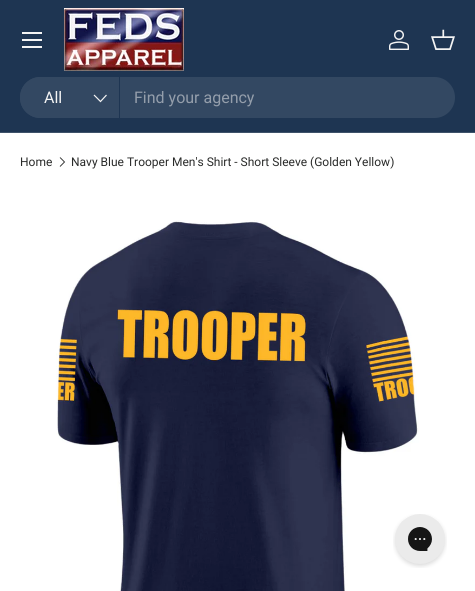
#include <cairo.h>
#include <math.h>
#include <stddef.h>


static void round_rect(cairo_t *cr, double x, double y, double w, double h, double r) {
    cairo_new_sub_path(cr);
    cairo_arc(cr, x + w - r, y + h - r, r, 0, M_PI / 2);
    cairo_arc(cr, x + r, y + h - r, r, M_PI / 2, M_PI);
    cairo_arc(cr, x + r, y + r, r, M_PI, 1.5 * M_PI);
    cairo_arc(cr, x + w - r, y + r, r, 1.5 * M_PI, 2 * M_PI);
    cairo_close_path(cr);
}

static void picture(cairo_t *cr, const char *path, double x, double y, double w, double h) {
    cairo_surface_t *image = cairo_image_surface_create_from_png(path);
    cairo_save(cr);
    cairo_set_source_surface(cr, image, x, y);
    cairo_rectangle(cr, x, y, w, h);
    cairo_fill(cr);
    cairo_restore(cr);
    cairo_surface_destroy(image);
}

int main(void) {
    cairo_surface_t *surface = cairo_image_surface_create(CAIRO_FORMAT_RGB24, 475, 591);
    cairo_t *cr = cairo_create(surface);
    cairo_font_options_t *options = cairo_font_options_create();
    cairo_font_options_set_hint_metrics(options, CAIRO_HINT_METRICS_OFF);
    cairo_font_options_set_hint_style(options, CAIRO_HINT_STYLE_NONE);
    cairo_set_font_options(cr, options);
    cairo_set_miter_limit(cr, 4);
    cairo_set_source_rgb(cr, 1, 1, 1);
    cairo_paint(cr);
    cairo_set_source_rgb(cr, 0.118, 0.208, 0.322);
    cairo_rectangle(cr, 0, 0, 475, 132);
    cairo_fill(cr);
    cairo_set_source_rgb(cr, 0.243, 0.322, 0.416);
    cairo_rectangle(cr, 0, 132, 475, 1);
    cairo_fill(cr);
    cairo_set_source_rgb(cr, 0.957, 0.957, 0.957);
    cairo_rectangle(cr, 22, 32, 20, 2);
    cairo_fill(cr);
    cairo_rectangle(cr, 22, 46, 20, 2);
    cairo_fill(cr);
    cairo_rectangle(cr, 22, 39, 20, 2);
    cairo_fill(cr);
    picture(cr, "img1.png", 64, 8, 120, 63);
    picture(cr, "img2.png", 389, 30, 20, 20);
    picture(cr, "img3.png", 431, 29, 24, 21);
    cairo_set_source_rgb(cr, 0.2, 0.282, 0.384);
    round_rect(cr, 20, 77, 435, 41, 20.5);
    cairo_fill(cr);
    cairo_new_path(cr);
    cairo_move_to(cr, 40.5, 77);
    cairo_line_to(cr, 120, 77);
    cairo_line_to(cr, 120, 118);
    cairo_line_to(cr, 40.5, 118);
    cairo_curve_to(cr, 29, 118, 20, 109, 20, 97.5);
    cairo_curve_to(cr, 20, 86, 29, 77, 40.5, 77);
    cairo_close_path(cr);
    cairo_fill(cr);
    cairo_set_source_rgb(cr, 0.118, 0.208, 0.322);
    cairo_rectangle(cr, 119, 77, 1, 41);
    cairo_fill(cr);
    cairo_select_font_face(cr, "Roboto", CAIRO_FONT_SLANT_NORMAL, CAIRO_FONT_WEIGHT_NORMAL);
    cairo_set_font_size(cr, 16);
    cairo_set_source_rgb(cr, 0.957, 0.957, 0.957);
    cairo_move_to(cr, 44, 103);
    cairo_show_text(cr, "All");
    cairo_new_path(cr);
    cairo_move_to(cr, 106.5, 95);
    cairo_line_to(cr, 100.5, 101.5);
    cairo_line_to(cr, 94, 95);
    cairo_set_line_width(cr, 1.2);
    cairo_stroke(cr);
    cairo_set_source_rgb(cr, 0.58, 0.62, 0.671);
    cairo_move_to(cr, 134, 103);
    cairo_show_text(cr, "Find your agency");
    cairo_set_font_size(cr, 12);
    cairo_set_source_rgb(cr, 0.165, 0.169, 0.165);
    cairo_move_to(cr, 20, 166);
    cairo_show_text(cr, "Home");
    cairo_new_path(cr);
    cairo_move_to(cr, 60, 157.5);
    cairo_line_to(cr, 64.5, 162);
    cairo_line_to(cr, 60, 166.5);
    cairo_set_line_width(cr, 0.9);
    cairo_stroke(cr);
    cairo_move_to(cr, 71, 166);
    cairo_show_text(cr, "Navy Blue Trooper Men's Shirt - Short Sleeve (Golden Yellow)");
    picture(cr, "img4.png", 56, 220, 363, 371);
    picture(cr, "img5.png", 393, 514, 54, 54);
    cairo_surface_write_to_png(surface, "page.png");
    cairo_font_options_destroy(options);
    cairo_destroy(cr);
    cairo_surface_destroy(surface);
    return 0;
}
